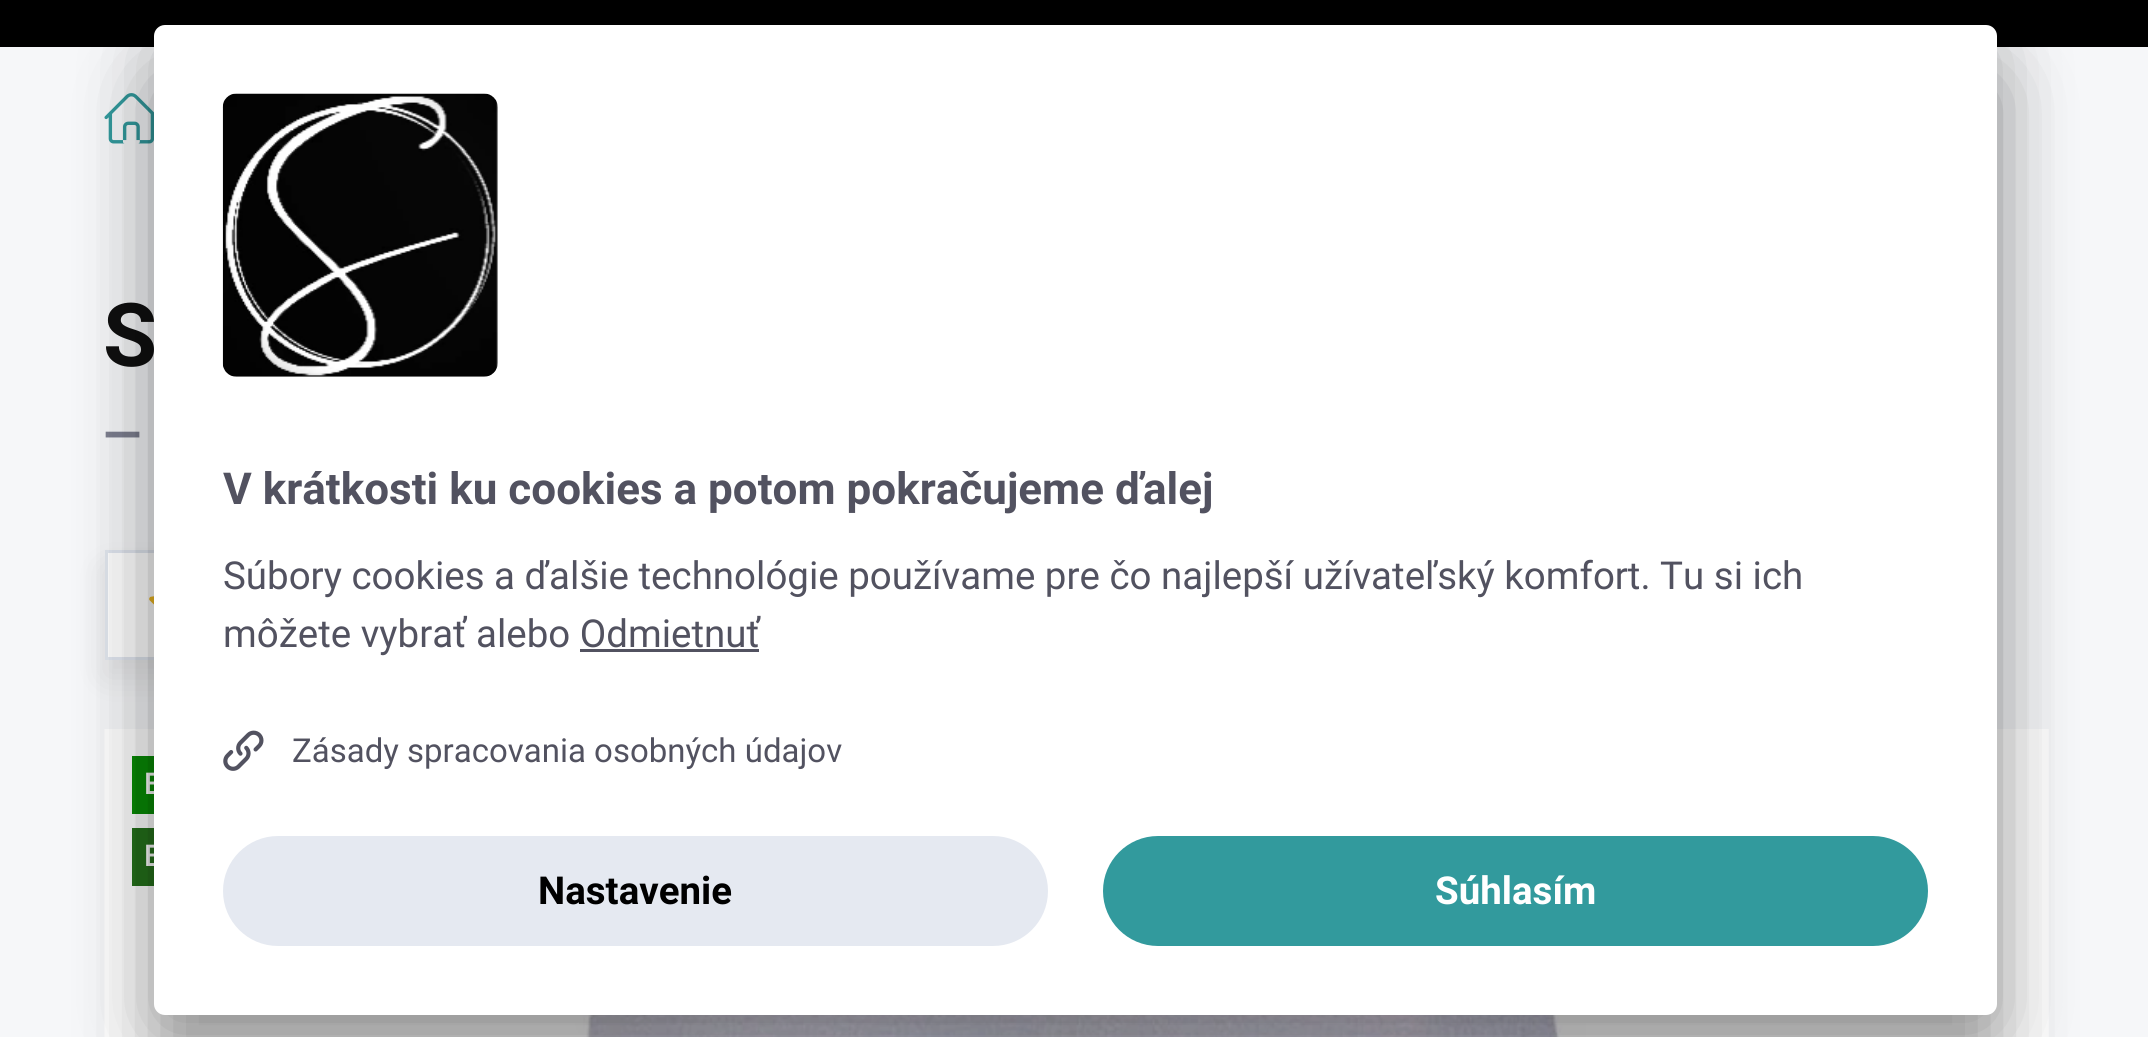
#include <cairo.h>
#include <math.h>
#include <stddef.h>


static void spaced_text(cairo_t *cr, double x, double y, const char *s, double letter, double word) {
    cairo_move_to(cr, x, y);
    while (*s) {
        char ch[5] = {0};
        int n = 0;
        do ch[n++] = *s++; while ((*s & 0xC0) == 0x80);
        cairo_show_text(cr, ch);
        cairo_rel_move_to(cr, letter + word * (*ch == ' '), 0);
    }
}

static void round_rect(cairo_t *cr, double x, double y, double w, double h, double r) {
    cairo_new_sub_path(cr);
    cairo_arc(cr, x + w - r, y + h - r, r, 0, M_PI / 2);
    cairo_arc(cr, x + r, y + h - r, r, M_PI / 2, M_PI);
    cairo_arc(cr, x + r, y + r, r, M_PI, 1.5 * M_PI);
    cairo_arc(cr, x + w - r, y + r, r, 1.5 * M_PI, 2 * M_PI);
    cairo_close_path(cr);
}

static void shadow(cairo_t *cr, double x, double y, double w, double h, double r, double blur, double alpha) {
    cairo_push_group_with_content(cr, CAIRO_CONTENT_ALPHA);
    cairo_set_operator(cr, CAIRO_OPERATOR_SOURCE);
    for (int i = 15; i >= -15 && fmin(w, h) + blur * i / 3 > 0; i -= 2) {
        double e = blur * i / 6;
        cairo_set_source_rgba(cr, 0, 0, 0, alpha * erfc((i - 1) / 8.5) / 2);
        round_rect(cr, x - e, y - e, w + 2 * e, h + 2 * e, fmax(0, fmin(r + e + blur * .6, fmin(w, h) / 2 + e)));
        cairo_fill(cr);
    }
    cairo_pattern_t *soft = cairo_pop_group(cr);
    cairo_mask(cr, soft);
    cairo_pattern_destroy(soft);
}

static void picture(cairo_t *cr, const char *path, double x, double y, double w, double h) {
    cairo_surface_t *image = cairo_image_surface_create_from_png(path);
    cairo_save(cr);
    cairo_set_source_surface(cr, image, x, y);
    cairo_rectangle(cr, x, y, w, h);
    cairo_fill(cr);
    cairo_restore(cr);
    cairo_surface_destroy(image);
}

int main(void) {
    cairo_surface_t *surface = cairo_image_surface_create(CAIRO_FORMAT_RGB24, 2148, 1037);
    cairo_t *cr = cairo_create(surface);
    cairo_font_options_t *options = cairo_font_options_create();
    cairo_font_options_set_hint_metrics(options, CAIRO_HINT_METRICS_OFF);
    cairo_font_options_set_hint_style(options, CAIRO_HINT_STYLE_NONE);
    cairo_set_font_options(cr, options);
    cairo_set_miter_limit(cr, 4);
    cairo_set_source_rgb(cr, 0.961, 0.965, 0.973);
    cairo_paint(cr);
    cairo_set_source_rgb(cr, 0, 0, 0);
    cairo_rectangle(cr, 0, 0, 2148, 47);
    cairo_fill(cr);
    picture(cr, "img1.png", 104, 93, 50, 51);
    cairo_select_font_face(cr, "Roboto", CAIRO_FONT_SLANT_NORMAL, CAIRO_FONT_WEIGHT_BOLD);
    cairo_set_font_size(cr, 88);
    cairo_set_source_rgb(cr, 0.059, 0.059, 0.059);
    cairo_move_to(cr, 103, 366);
    cairo_show_text(cr, "S");
    cairo_set_font_size(cr, 50);
    cairo_set_source_rgb(cr, 0.486, 0.494, 0.561);
    cairo_move_to(cr, 103, 452);
    cairo_show_text(cr, "—");
    cairo_set_source_rgb(cr, 0, 0, 0);
    shadow(cr, 105, 567, 607, 110, 0, 16.5, 0.08);
    cairo_set_source_rgb(cr, 1, 1, 1);
    cairo_rectangle(cr, 108, 553, 46, 104);
    cairo_fill(cr);
    cairo_rectangle(cr, 106.5, 551.5, 604, 107);
    cairo_set_source_rgb(cr, 0.878, 0.898, 0.933);
    cairo_set_line_width(cr, 3);
    cairo_stroke(cr);
    picture(cr, "img2.png", 149, 596, 5, 9);
    picture(cr, "img3.png", 104, 729, 1945, 308);
    cairo_set_source_rgb(cr, 0.035, 0.545, 0.016);
    cairo_rectangle(cr, 132, 756, 22, 58);
    cairo_fill(cr);
    cairo_select_font_face(cr, "Roboto Medium", CAIRO_FONT_SLANT_NORMAL, CAIRO_FONT_WEIGHT_NORMAL);
    cairo_set_font_size(cr, 30);
    cairo_set_source_rgb(cr, 1, 1, 1);
    spaced_text(cr, 144, 794, "E", 1, 0);
    cairo_set_source_rgb(cr, 0.141, 0.439, 0.102);
    cairo_rectangle(cr, 132, 828, 22, 58);
    cairo_fill(cr);
    cairo_set_source_rgb(cr, 1, 1, 1);
    spaced_text(cr, 144, 866, "E", 1, 0);
    cairo_set_source_rgb(cr, 0, 0, 0);
    shadow(cr, 154, 80, 1843, 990, 11, 38.5, 0.3);
    shadow(cr, 154, 39, 1843, 990, 11, 36, 0.22);
    cairo_set_source_rgb(cr, 1, 1, 1);
    round_rect(cr, 154, 25, 1843, 990, 11);
    cairo_fill(cr);
    picture(cr, "img4.png", 222, 93, 276, 284);
    cairo_select_font_face(cr, "Roboto", CAIRO_FONT_SLANT_NORMAL, CAIRO_FONT_WEIGHT_BOLD);
    cairo_set_font_size(cr, 44);
    cairo_set_source_rgb(cr, 0.322, 0.322, 0.376);
    cairo_move_to(cr, 223, 504);
    cairo_show_text(cr, "V krátkosti ku cookies a potom pokračujeme ďalej");
    cairo_select_font_face(cr, "Roboto", CAIRO_FONT_SLANT_NORMAL, CAIRO_FONT_WEIGHT_NORMAL);
    cairo_set_font_size(cr, 38.5);
    cairo_move_to(cr, 223, 589);
    cairo_show_text(cr, "Súbory cookies a ďalšie technológie používame pre čo najlepší užívateľský komfort. Tu si ich");
    cairo_move_to(cr, 223, 647);
    cairo_show_text(cr, "môžete vybrať alebo Odmietnuť");
    cairo_rectangle(cr, 580, 649, 179, 3);
    cairo_fill(cr);
    picture(cr, "img5.png", 223, 730, 41, 41);
    cairo_set_font_size(cr, 33);
    cairo_move_to(cr, 292, 762);
    cairo_show_text(cr, "Zásady spracovania osobných údajov");
    cairo_set_source_rgb(cr, 0.898, 0.914, 0.945);
    round_rect(cr, 223, 836, 825, 110, 55);
    cairo_fill(cr);
    cairo_select_font_face(cr, "Roboto", CAIRO_FONT_SLANT_NORMAL, CAIRO_FONT_WEIGHT_BOLD);
    cairo_set_font_size(cr, 38.5);
    cairo_set_source_rgb(cr, 0, 0, 0);
    cairo_move_to(cr, 538, 904);
    cairo_show_text(cr, "Nastavenie");
    cairo_set_source_rgb(cr, 0.196, 0.604, 0.616);
    round_rect(cr, 1103, 836, 825, 110, 55);
    cairo_fill(cr);
    cairo_set_source_rgb(cr, 1, 1, 1);
    cairo_move_to(cr, 1435, 904);
    cairo_show_text(cr, "Súhlasím");
    cairo_surface_write_to_png(surface, "page.png");
    cairo_font_options_destroy(options);
    cairo_destroy(cr);
    cairo_surface_destroy(surface);
    return 0;
}
